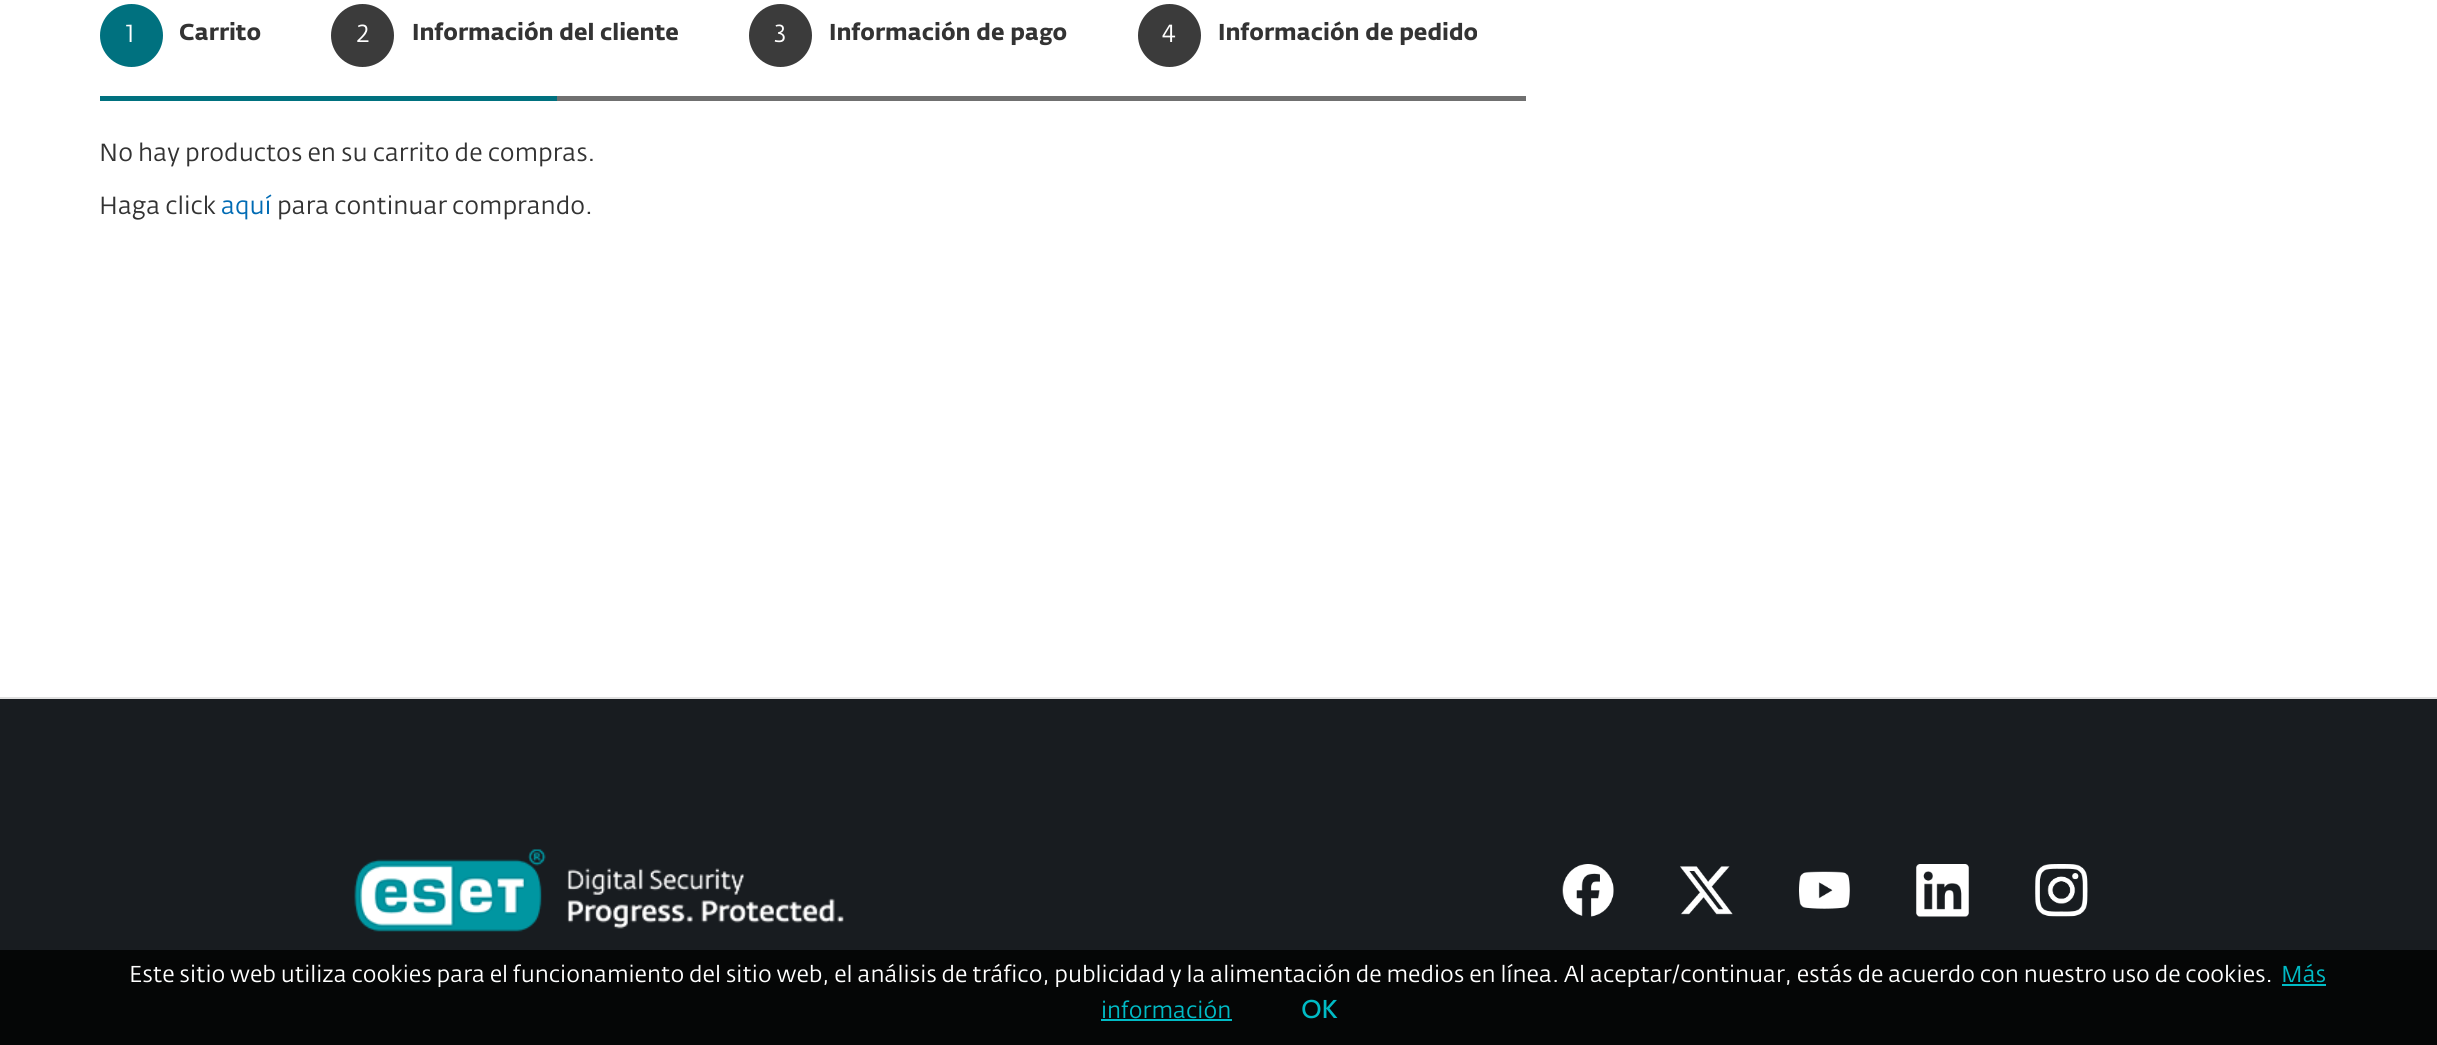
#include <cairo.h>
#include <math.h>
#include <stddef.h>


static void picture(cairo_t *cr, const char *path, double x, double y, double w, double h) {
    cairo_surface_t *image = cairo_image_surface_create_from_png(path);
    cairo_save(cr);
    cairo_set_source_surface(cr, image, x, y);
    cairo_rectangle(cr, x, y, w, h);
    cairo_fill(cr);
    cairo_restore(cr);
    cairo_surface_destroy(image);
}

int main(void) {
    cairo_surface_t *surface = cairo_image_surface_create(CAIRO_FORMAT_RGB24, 2437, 1045);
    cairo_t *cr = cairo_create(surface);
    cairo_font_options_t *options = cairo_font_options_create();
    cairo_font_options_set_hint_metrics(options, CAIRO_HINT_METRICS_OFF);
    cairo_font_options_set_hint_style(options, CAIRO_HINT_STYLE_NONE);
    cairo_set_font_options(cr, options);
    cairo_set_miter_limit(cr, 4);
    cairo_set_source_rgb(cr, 1, 1, 1);
    cairo_paint(cr);
    cairo_set_source_rgb(cr, 0, 0.443, 0.498);
    cairo_arc(cr, 131.5, 35.5, 30.5, 0, 2 * M_PI);
    cairo_fill_preserve(cr);
    cairo_stroke(cr);
    cairo_select_font_face(cr, "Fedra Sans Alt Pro", CAIRO_FONT_SLANT_NORMAL, CAIRO_FONT_WEIGHT_NORMAL);
    cairo_set_font_size(cr, 24.5);
    cairo_set_source_rgb(cr, 1, 1, 1);
    cairo_move_to(cr, 126, 42);
    cairo_show_text(cr, "1");
    cairo_select_font_face(cr, "Fedra Sans Alt Pro", CAIRO_FONT_SLANT_NORMAL, CAIRO_FONT_WEIGHT_BOLD);
    cairo_set_font_size(cr, 22.75);
    cairo_set_source_rgb(cr, 0.2, 0.2, 0.2);
    cairo_move_to(cr, 179, 40);
    cairo_show_text(cr, "Carrito");
    cairo_set_source_rgb(cr, 0.231, 0.231, 0.231);
    cairo_new_path(cr);
    cairo_arc(cr, 362.5, 35.5, 31.5, 0, 2 * M_PI);
    cairo_fill(cr);
    cairo_select_font_face(cr, "Fedra Sans Alt Pro", CAIRO_FONT_SLANT_NORMAL, CAIRO_FONT_WEIGHT_NORMAL);
    cairo_set_font_size(cr, 24.5);
    cairo_set_source_rgb(cr, 1, 1, 1);
    cairo_move_to(cr, 357, 42);
    cairo_show_text(cr, "2");
    cairo_select_font_face(cr, "Fedra Sans Alt Pro", CAIRO_FONT_SLANT_NORMAL, CAIRO_FONT_WEIGHT_BOLD);
    cairo_set_font_size(cr, 22.75);
    cairo_set_source_rgb(cr, 0.2, 0.2, 0.2);
    cairo_move_to(cr, 412, 40);
    cairo_show_text(cr, "Información del cliente");
    cairo_set_source_rgb(cr, 0.231, 0.231, 0.231);
    cairo_new_path(cr);
    cairo_arc(cr, 780.5, 35.5, 31.5, 0, 2 * M_PI);
    cairo_fill(cr);
    cairo_select_font_face(cr, "Fedra Sans Alt Pro", CAIRO_FONT_SLANT_NORMAL, CAIRO_FONT_WEIGHT_NORMAL);
    cairo_set_font_size(cr, 24.5);
    cairo_set_source_rgb(cr, 1, 1, 1);
    cairo_move_to(cr, 774, 42);
    cairo_show_text(cr, "3");
    cairo_select_font_face(cr, "Fedra Sans Alt Pro", CAIRO_FONT_SLANT_NORMAL, CAIRO_FONT_WEIGHT_BOLD);
    cairo_set_font_size(cr, 22.75);
    cairo_set_source_rgb(cr, 0.2, 0.2, 0.2);
    cairo_move_to(cr, 829, 40);
    cairo_show_text(cr, "Información de pago");
    cairo_set_source_rgb(cr, 0.231, 0.231, 0.231);
    cairo_new_path(cr);
    cairo_arc(cr, 1169.5, 35.5, 31.5, 0, 2 * M_PI);
    cairo_fill(cr);
    cairo_select_font_face(cr, "Fedra Sans Alt Pro", CAIRO_FONT_SLANT_NORMAL, CAIRO_FONT_WEIGHT_NORMAL);
    cairo_set_font_size(cr, 24.5);
    cairo_set_source_rgb(cr, 1, 1, 1);
    cairo_move_to(cr, 1162, 42);
    cairo_show_text(cr, "4");
    cairo_select_font_face(cr, "Fedra Sans Alt Pro", CAIRO_FONT_SLANT_NORMAL, CAIRO_FONT_WEIGHT_BOLD);
    cairo_set_font_size(cr, 22.75);
    cairo_set_source_rgb(cr, 0.2, 0.2, 0.2);
    cairo_move_to(cr, 1218, 40);
    cairo_show_text(cr, "Información de pedido");
    cairo_set_source_rgb(cr, 0, 0.443, 0.498);
    cairo_rectangle(cr, 100, 96, 457, 5);
    cairo_fill(cr);
    cairo_set_source_rgb(cr, 0.439, 0.439, 0.439);
    cairo_rectangle(cr, 557, 96, 969, 5);
    cairo_fill(cr);
    cairo_select_font_face(cr, "Fedra Sans Alt Pro", CAIRO_FONT_SLANT_NORMAL, CAIRO_FONT_WEIGHT_NORMAL);
    cairo_set_font_size(cr, 24.5);
    cairo_set_source_rgb(cr, 0.2, 0.2, 0.2);
    cairo_move_to(cr, 99, 161);
    cairo_show_text(cr, "No hay productos en su carrito de compras.");
    cairo_move_to(cr, 99, 214);
    cairo_show_text(cr, "Haga click");
    cairo_set_source_rgb(cr, 0, 0.42, 0.706);
    cairo_move_to(cr, 221, 214);
    cairo_show_text(cr, "aquí");
    cairo_set_source_rgb(cr, 0.2, 0.2, 0.2);
    cairo_move_to(cr, 277, 214);
    cairo_show_text(cr, "para continuar comprando.");
    cairo_set_source_rgb(cr, 0.094, 0.11, 0.125);
    cairo_rectangle(cr, 0, 699, 2437, 251);
    cairo_fill(cr);
    cairo_set_source_rgb(cr, 0.878, 0.878, 0.878);
    cairo_rectangle(cr, 0, 697, 2437, 2);
    cairo_fill(cr);
    picture(cr, "img1.png", 354, 849, 490, 83);
    picture(cr, "img2.png", 1562, 864, 52, 53);
    picture(cr, "img3.png", 1680, 866, 53, 49);
    picture(cr, "img4.png", 1799, 871, 51, 38);
    picture(cr, "img5.png", 1916, 864, 53, 53);
    picture(cr, "img6.png", 2035, 864, 53, 53);
    cairo_set_source_rgb(cr, 0.02, 0.024, 0.024);
    cairo_rectangle(cr, 0, 950, 2437, 95);
    cairo_fill(cr);
    cairo_set_font_size(cr, 22.75);
    cairo_set_source_rgb(cr, 1, 1, 1);
    cairo_move_to(cr, 129, 982);
    cairo_show_text(cr, "Este sitio web utiliza cookies para el funcionamiento del sitio web, el análisis de tráfico, publicidad y la alimentación de medios en línea. Al aceptar/continuar, estás de acuerdo con nuestro uso de cookies.");
    cairo_set_source_rgb(cr, 0, 0.733, 0.773);
    cairo_move_to(cr, 2281, 982);
    cairo_show_text(cr, "Más");
    cairo_rectangle(cr, 2282, 984, 44, 2);
    cairo_fill(cr);
    cairo_move_to(cr, 1101, 1018);
    cairo_show_text(cr, "información");
    cairo_rectangle(cr, 1101, 1019, 131, 2);
    cairo_fill(cr);
    cairo_select_font_face(cr, "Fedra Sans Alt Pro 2", CAIRO_FONT_SLANT_NORMAL, CAIRO_FONT_WEIGHT_BOLD);
    cairo_set_font_size(cr, 24.5);
    cairo_move_to(cr, 1301, 1018);
    cairo_show_text(cr, "OK");
    cairo_surface_write_to_png(surface, "page.png");
    cairo_font_options_destroy(options);
    cairo_destroy(cr);
    cairo_surface_destroy(surface);
    return 0;
}
